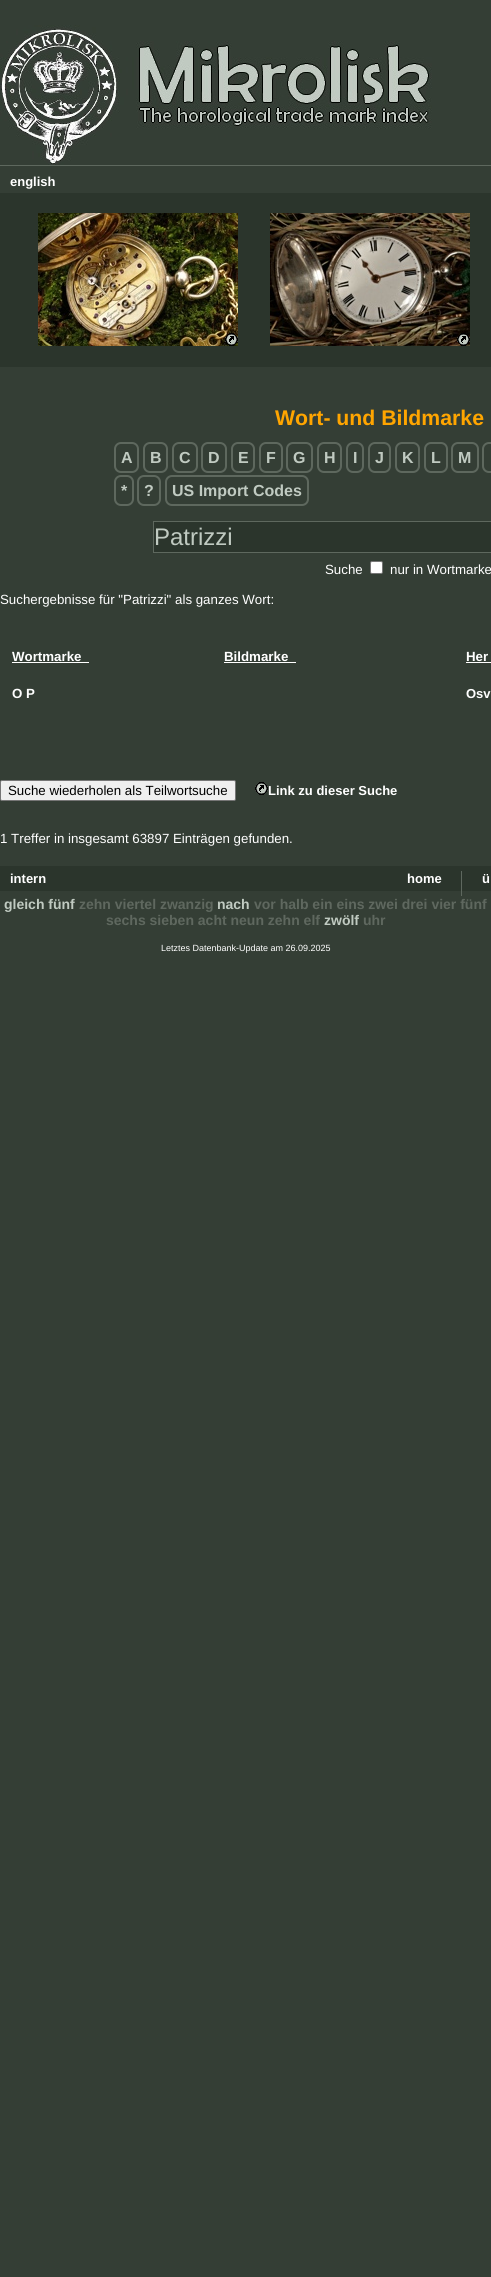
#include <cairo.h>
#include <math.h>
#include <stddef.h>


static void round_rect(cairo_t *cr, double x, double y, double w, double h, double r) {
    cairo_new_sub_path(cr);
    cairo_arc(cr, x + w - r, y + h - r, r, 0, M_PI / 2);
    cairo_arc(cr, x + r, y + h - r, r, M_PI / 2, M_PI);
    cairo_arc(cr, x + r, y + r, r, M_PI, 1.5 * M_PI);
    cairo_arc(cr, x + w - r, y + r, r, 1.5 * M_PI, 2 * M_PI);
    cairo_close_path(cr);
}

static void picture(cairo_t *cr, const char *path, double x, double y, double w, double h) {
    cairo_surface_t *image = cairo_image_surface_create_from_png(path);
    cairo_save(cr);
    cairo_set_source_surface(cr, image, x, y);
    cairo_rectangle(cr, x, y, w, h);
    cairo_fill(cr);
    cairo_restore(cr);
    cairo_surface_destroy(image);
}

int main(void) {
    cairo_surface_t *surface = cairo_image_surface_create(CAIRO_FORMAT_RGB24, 491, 2277);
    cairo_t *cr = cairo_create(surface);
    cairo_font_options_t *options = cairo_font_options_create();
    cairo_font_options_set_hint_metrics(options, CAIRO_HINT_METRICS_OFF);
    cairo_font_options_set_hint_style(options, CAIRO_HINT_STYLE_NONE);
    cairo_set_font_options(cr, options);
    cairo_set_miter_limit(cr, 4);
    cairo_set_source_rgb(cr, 0.204, 0.243, 0.208);
    cairo_paint(cr);
    picture(cr, "img1.png", 0, 25, 432, 140);
    cairo_set_source_rgb(cr, 0.369, 0.408, 0.369);
    cairo_rectangle(cr, 0, 165, 491, 1);
    cairo_fill(cr);
    cairo_select_font_face(cr, "Liberation Sans", CAIRO_FONT_SLANT_NORMAL, CAIRO_FONT_WEIGHT_BOLD);
    cairo_set_font_size(cr, 13);
    cairo_set_source_rgb(cr, 1, 1, 1);
    cairo_move_to(cr, 10, 186);
    cairo_show_text(cr, "english");
    cairo_set_source_rgb(cr, 0.169, 0.208, 0.173);
    cairo_rectangle(cr, 0, 193, 491, 174);
    cairo_fill(cr);
    picture(cr, "img2.png", 38, 213, 200, 133);
    picture(cr, "img3.png", 270, 213, 200, 133);
    picture(cr, "img4.png", 225, 333, 13, 13);
    picture(cr, "img5.png", 457, 333, 13, 13);
    cairo_set_font_size(cr, 21.25);
    cairo_set_source_rgb(cr, 1, 0.647, 0);
    cairo_move_to(cr, 275, 425);
    cairo_show_text(cr, "Wort- und Bildmarke");
    round_rect(cr, 115, 443, 23, 29, 6);
    cairo_set_source_rgb(cr, 0.369, 0.408, 0.369);
    cairo_stroke(cr);
    cairo_set_font_size(cr, 16);
    cairo_set_source_rgb(cr, 0.753, 0.792, 0.757);
    cairo_move_to(cr, 121, 463);
    cairo_show_text(cr, "A");
    round_rect(cr, 144, 443, 23, 29, 6);
    cairo_set_source_rgb(cr, 0.369, 0.408, 0.369);
    cairo_stroke(cr);
    cairo_set_source_rgb(cr, 0.753, 0.792, 0.757);
    cairo_move_to(cr, 150, 463);
    cairo_show_text(cr, "B");
    round_rect(cr, 173, 443, 24, 29, 6);
    cairo_set_source_rgb(cr, 0.369, 0.408, 0.369);
    cairo_stroke(cr);
    cairo_set_source_rgb(cr, 0.753, 0.792, 0.757);
    cairo_move_to(cr, 179, 463);
    cairo_show_text(cr, "C");
    round_rect(cr, 202, 443, 24, 29, 6);
    cairo_set_source_rgb(cr, 0.369, 0.408, 0.369);
    cairo_stroke(cr);
    cairo_set_source_rgb(cr, 0.753, 0.792, 0.757);
    cairo_move_to(cr, 208, 463);
    cairo_show_text(cr, "D");
    round_rect(cr, 232, 443, 22, 29, 6);
    cairo_set_source_rgb(cr, 0.369, 0.408, 0.369);
    cairo_stroke(cr);
    cairo_set_source_rgb(cr, 0.753, 0.792, 0.757);
    cairo_move_to(cr, 238, 463);
    cairo_show_text(cr, "E");
    round_rect(cr, 260, 443, 22, 29, 6);
    cairo_set_source_rgb(cr, 0.369, 0.408, 0.369);
    cairo_stroke(cr);
    cairo_set_source_rgb(cr, 0.753, 0.792, 0.757);
    cairo_move_to(cr, 266, 463);
    cairo_show_text(cr, "F");
    round_rect(cr, 287, 443, 25, 29, 6);
    cairo_set_source_rgb(cr, 0.369, 0.408, 0.369);
    cairo_stroke(cr);
    cairo_set_source_rgb(cr, 0.753, 0.792, 0.757);
    cairo_move_to(cr, 293, 463);
    cairo_show_text(cr, "G");
    round_rect(cr, 318, 443, 23, 29, 6);
    cairo_set_source_rgb(cr, 0.369, 0.408, 0.369);
    cairo_stroke(cr);
    cairo_set_source_rgb(cr, 0.753, 0.792, 0.757);
    cairo_move_to(cr, 324, 463);
    cairo_show_text(cr, "H");
    round_rect(cr, 347, 443, 16, 29, 6);
    cairo_set_source_rgb(cr, 0.369, 0.408, 0.369);
    cairo_stroke(cr);
    cairo_set_source_rgb(cr, 0.753, 0.792, 0.757);
    cairo_move_to(cr, 353, 463);
    cairo_show_text(cr, "I");
    round_rect(cr, 369, 443, 21, 29, 6);
    cairo_set_source_rgb(cr, 0.369, 0.408, 0.369);
    cairo_stroke(cr);
    cairo_set_source_rgb(cr, 0.753, 0.792, 0.757);
    cairo_move_to(cr, 375, 463);
    cairo_show_text(cr, "J");
    round_rect(cr, 396, 443, 23, 29, 6);
    cairo_set_source_rgb(cr, 0.369, 0.408, 0.369);
    cairo_stroke(cr);
    cairo_set_source_rgb(cr, 0.753, 0.792, 0.757);
    cairo_move_to(cr, 402, 463);
    cairo_show_text(cr, "K");
    round_rect(cr, 425, 443, 22, 29, 6);
    cairo_set_source_rgb(cr, 0.369, 0.408, 0.369);
    cairo_stroke(cr);
    cairo_set_source_rgb(cr, 0.753, 0.792, 0.757);
    cairo_move_to(cr, 431, 463);
    cairo_show_text(cr, "L");
    round_rect(cr, 452, 443, 26, 29, 6);
    cairo_set_source_rgb(cr, 0.369, 0.408, 0.369);
    cairo_stroke(cr);
    cairo_set_source_rgb(cr, 0.753, 0.792, 0.757);
    cairo_move_to(cr, 458, 463);
    cairo_show_text(cr, "M");
    round_rect(cr, 483, 443, 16, 29, 6);
    cairo_set_source_rgb(cr, 0.369, 0.408, 0.369);
    cairo_stroke(cr);
    round_rect(cr, 115, 476, 18, 29, 6);
    cairo_stroke(cr);
    cairo_set_source_rgb(cr, 0.753, 0.792, 0.757);
    cairo_move_to(cr, 121, 496);
    cairo_show_text(cr, "*");
    round_rect(cr, 138, 476, 22, 29, 6);
    cairo_set_source_rgb(cr, 0.369, 0.408, 0.369);
    cairo_stroke(cr);
    cairo_set_source_rgb(cr, 0.753, 0.792, 0.757);
    cairo_move_to(cr, 144, 496);
    cairo_show_text(cr, "?");
    round_rect(cr, 166, 476, 142, 29, 6);
    cairo_set_source_rgb(cr, 0.369, 0.408, 0.369);
    cairo_stroke(cr);
    cairo_set_source_rgb(cr, 0.753, 0.792, 0.757);
    cairo_move_to(cr, 172, 496);
    cairo_show_text(cr, "US Import Codes");
    cairo_set_source_rgb(cr, 0.169, 0.208, 0.173);
    cairo_rectangle(cr, 153.5, 521.5, 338, 31);
    cairo_fill_preserve(cr);
    cairo_set_source_rgb(cr, 0.369, 0.408, 0.369);
    cairo_set_line_width(cr, 1);
    cairo_stroke(cr);
    cairo_select_font_face(cr, "Liberation Sans", CAIRO_FONT_SLANT_NORMAL, CAIRO_FONT_WEIGHT_NORMAL);
    cairo_set_font_size(cr, 24);
    cairo_set_source_rgb(cr, 0.753, 0.792, 0.757);
    cairo_move_to(cr, 154, 545);
    cairo_show_text(cr, "Patrizzi");
    cairo_set_font_size(cr, 13.3);
    cairo_set_source_rgb(cr, 1, 1, 1);
    cairo_move_to(cr, 325, 574);
    cairo_show_text(cr, "Suche");
    round_rect(cr, 370.5, 561.5, 12, 12, 1.5);
    cairo_fill_preserve(cr);
    cairo_set_source_rgb(cr, 0.463, 0.463, 0.463);
    cairo_stroke(cr);
    cairo_set_source_rgb(cr, 1, 1, 1);
    cairo_move_to(cr, 390, 574);
    cairo_show_text(cr, "nur in Wortmarke");
    cairo_move_to(cr, 0, 604);
    cairo_show_text(cr, "Suchergebnisse für \"Patrizzi\" als ganzes Wort:");
    cairo_select_font_face(cr, "Liberation Sans", CAIRO_FONT_SLANT_NORMAL, CAIRO_FONT_WEIGHT_BOLD);
    cairo_move_to(cr, 12, 661);
    cairo_show_text(cr, "Wortmarke");
    cairo_rectangle(cr, 12, 662, 77, 1);
    cairo_fill(cr);
    cairo_move_to(cr, 224, 661);
    cairo_show_text(cr, "Bildmarke");
    cairo_rectangle(cr, 224, 662, 72, 1);
    cairo_fill(cr);
    cairo_move_to(cr, 466, 661);
    cairo_show_text(cr, "Her");
    cairo_rectangle(cr, 466, 662, 25, 1);
    cairo_fill(cr);
    cairo_move_to(cr, 12, 698);
    cairo_show_text(cr, "O P");
    cairo_set_font_size(cr, 13);
    cairo_move_to(cr, 466, 698);
    cairo_show_text(cr, "Osv");
    cairo_set_source_rgb(cr, 0.937, 0.937, 0.937);
    round_rect(cr, 0.5, 780.5, 235, 20, 1.5);
    cairo_fill_preserve(cr);
    cairo_set_source_rgb(cr, 0.463, 0.463, 0.463);
    cairo_stroke(cr);
    cairo_select_font_face(cr, "Liberation Sans", CAIRO_FONT_SLANT_NORMAL, CAIRO_FONT_WEIGHT_NORMAL);
    cairo_set_font_size(cr, 13.3);
    cairo_set_source_rgb(cr, 0, 0, 0);
    cairo_move_to(cr, 8, 795);
    cairo_show_text(cr, "Suche wiederholen als Teilwortsuche");
    picture(cr, "img6.png", 255, 782, 13, 13);
    cairo_select_font_face(cr, "Liberation Sans", CAIRO_FONT_SLANT_NORMAL, CAIRO_FONT_WEIGHT_BOLD);
    cairo_set_font_size(cr, 13);
    cairo_set_source_rgb(cr, 1, 1, 1);
    cairo_move_to(cr, 268, 795);
    cairo_show_text(cr, "Link zu dieser Suche");
    cairo_select_font_face(cr, "Liberation Sans", CAIRO_FONT_SLANT_NORMAL, CAIRO_FONT_WEIGHT_NORMAL);
    cairo_set_font_size(cr, 13.3);
    cairo_move_to(cr, 0, 843);
    cairo_show_text(cr, "1 Treffer in insgesamt 63897 Einträgen gefunden.");
    cairo_set_source_rgb(cr, 0.169, 0.208, 0.173);
    cairo_rectangle(cr, 0, 866, 491, 25);
    cairo_fill(cr);
    cairo_select_font_face(cr, "Liberation Sans", CAIRO_FONT_SLANT_NORMAL, CAIRO_FONT_WEIGHT_BOLD);
    cairo_set_font_size(cr, 13);
    cairo_set_source_rgb(cr, 1, 1, 1);
    cairo_move_to(cr, 10, 883);
    cairo_show_text(cr, "intern");
    cairo_move_to(cr, 407, 883);
    cairo_show_text(cr, "home");
    cairo_set_source_rgb(cr, 0.369, 0.408, 0.373);
    cairo_rectangle(cr, 461, 871, 1, 25);
    cairo_fill(cr);
    cairo_set_source_rgb(cr, 1, 1, 1);
    cairo_move_to(cr, 482, 883);
    cairo_show_text(cr, "ü");
    cairo_set_font_size(cr, 14);
    cairo_set_source_rgb(cr, 0.753, 0.792, 0.757);
    cairo_move_to(cr, 4, 909);
    cairo_show_text(cr, "gleich fünf");
    cairo_set_source_rgb(cr, 0.373, 0.408, 0.373);
    cairo_move_to(cr, 79, 909);
    cairo_show_text(cr, "zehn viertel zwanzig");
    cairo_set_source_rgb(cr, 0.753, 0.792, 0.757);
    cairo_move_to(cr, 217, 909);
    cairo_show_text(cr, "nach");
    cairo_set_source_rgb(cr, 0.373, 0.408, 0.373);
    cairo_move_to(cr, 254, 909);
    cairo_show_text(cr, "vor halb ein eins zwei drei vier fünf");
    cairo_move_to(cr, 106, 925);
    cairo_show_text(cr, "sechs sieben acht neun zehn elf");
    cairo_set_source_rgb(cr, 0.753, 0.792, 0.757);
    cairo_move_to(cr, 324, 925);
    cairo_show_text(cr, "zwölf");
    cairo_set_source_rgb(cr, 0.373, 0.408, 0.373);
    cairo_move_to(cr, 363, 925);
    cairo_show_text(cr, "uhr");
    cairo_select_font_face(cr, "Liberation Sans", CAIRO_FONT_SLANT_NORMAL, CAIRO_FONT_WEIGHT_NORMAL);
    cairo_set_font_size(cr, 9);
    cairo_set_source_rgb(cr, 1, 1, 1);
    cairo_move_to(cr, 161, 951);
    cairo_show_text(cr, "Letztes Datenbank-Update am 26.09.2025");
    cairo_surface_write_to_png(surface, "page.png");
    cairo_font_options_destroy(options);
    cairo_destroy(cr);
    cairo_surface_destroy(surface);
    return 0;
}
